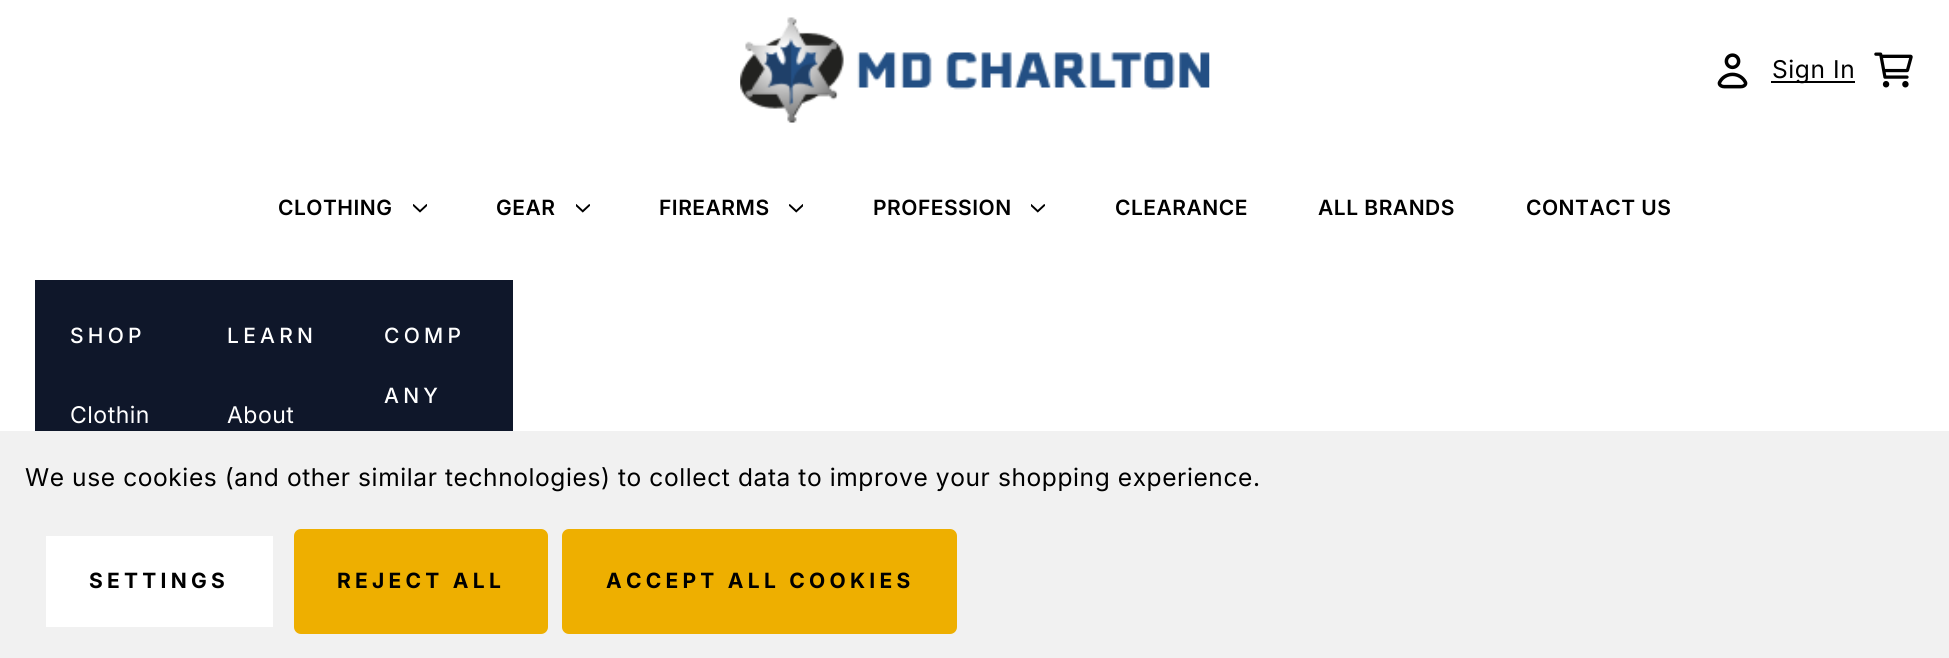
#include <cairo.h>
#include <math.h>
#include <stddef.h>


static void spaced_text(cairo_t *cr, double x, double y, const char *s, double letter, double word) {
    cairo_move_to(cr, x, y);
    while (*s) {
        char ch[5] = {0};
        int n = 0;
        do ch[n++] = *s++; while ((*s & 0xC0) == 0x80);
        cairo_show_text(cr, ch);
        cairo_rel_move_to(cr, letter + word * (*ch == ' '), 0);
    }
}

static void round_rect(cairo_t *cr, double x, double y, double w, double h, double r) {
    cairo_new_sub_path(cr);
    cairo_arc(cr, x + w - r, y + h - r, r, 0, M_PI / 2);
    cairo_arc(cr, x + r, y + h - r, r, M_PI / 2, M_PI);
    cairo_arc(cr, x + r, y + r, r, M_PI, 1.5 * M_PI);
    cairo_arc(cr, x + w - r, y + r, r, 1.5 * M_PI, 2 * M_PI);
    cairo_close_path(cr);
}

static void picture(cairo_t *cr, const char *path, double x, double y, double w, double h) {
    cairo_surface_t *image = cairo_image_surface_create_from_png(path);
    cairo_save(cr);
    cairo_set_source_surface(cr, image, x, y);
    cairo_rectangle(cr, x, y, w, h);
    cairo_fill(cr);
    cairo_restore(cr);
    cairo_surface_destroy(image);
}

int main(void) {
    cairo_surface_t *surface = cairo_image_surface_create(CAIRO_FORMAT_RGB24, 1949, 658);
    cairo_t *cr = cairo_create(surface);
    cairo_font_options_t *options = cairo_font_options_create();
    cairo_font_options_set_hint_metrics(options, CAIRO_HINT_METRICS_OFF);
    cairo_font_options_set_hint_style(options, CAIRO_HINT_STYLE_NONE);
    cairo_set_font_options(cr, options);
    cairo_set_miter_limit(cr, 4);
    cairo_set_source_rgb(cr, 1, 1, 1);
    cairo_paint(cr);
    picture(cr, "img1.png", 740, 17, 470, 106);
    picture(cr, "img2.png", 1717, 53, 31, 36);
    cairo_set_source_rgb(cr, 0, 0, 0);
    cairo_rectangle(cr, 1771, 81, 84, 2);
    cairo_fill(cr);
    cairo_select_font_face(cr, "Inter", CAIRO_FONT_SLANT_NORMAL, CAIRO_FONT_WEIGHT_NORMAL);
    cairo_set_font_size(cr, 24.5);
    spaced_text(cr, 1772, 78, "Sign In", 0.6, 0);
    picture(cr, "img3.png", 1874, 52, 39, 36);
    cairo_select_font_face(cr, "Inter SemiBold", CAIRO_FONT_SLANT_NORMAL, CAIRO_FONT_WEIGHT_NORMAL);
    cairo_set_font_size(cr, 21);
    spaced_text(cr, 278, 215, "CLOTHING", 0.5, 0);
    picture(cr, "img4.png", 413, 204, 14, 9);
    spaced_text(cr, 496, 215, "GEAR", 0.5, 0);
    picture(cr, "img5.png", 576, 204, 14, 9);
    spaced_text(cr, 659, 215, "FIREARMS", 0.5, 0);
    picture(cr, "img6.png", 789, 204, 14, 9);
    spaced_text(cr, 873, 215, "PROFESSION", 0.5, 0);
    picture(cr, "img5.png", 1031, 204, 14, 9);
    spaced_text(cr, 1115, 215, "CLEARANCE", 0.5, 0);
    spaced_text(cr, 1318, 215, "ALL BRANDS", 0.5, 0);
    spaced_text(cr, 1526, 215, "CONTACT US", 0.5, 0);
    cairo_set_source_rgb(cr, 0.059, 0.09, 0.165);
    cairo_rectangle(cr, 35, 280, 478, 151);
    cairo_fill(cr);
    cairo_select_font_face(cr, "Inter Medium", CAIRO_FONT_SLANT_NORMAL, CAIRO_FONT_WEIGHT_NORMAL);
    cairo_set_source_rgb(cr, 1, 1, 1);
    spaced_text(cr, 70, 343, "SHOP", 4.25, 0);
    cairo_select_font_face(cr, "Inter", CAIRO_FONT_SLANT_NORMAL, CAIRO_FONT_WEIGHT_NORMAL);
    cairo_set_font_size(cr, 23);
    spaced_text(cr, 70, 423, "Clothin", 0.5, 0);
    cairo_select_font_face(cr, "Inter Medium", CAIRO_FONT_SLANT_NORMAL, CAIRO_FONT_WEIGHT_NORMAL);
    cairo_set_font_size(cr, 21);
    spaced_text(cr, 227, 343, "LEARN", 4.25, 0);
    cairo_select_font_face(cr, "Inter", CAIRO_FONT_SLANT_NORMAL, CAIRO_FONT_WEIGHT_NORMAL);
    cairo_set_font_size(cr, 23);
    spaced_text(cr, 227, 423, "About", 0.5, 0);
    cairo_select_font_face(cr, "Inter Medium", CAIRO_FONT_SLANT_NORMAL, CAIRO_FONT_WEIGHT_NORMAL);
    cairo_set_font_size(cr, 21);
    spaced_text(cr, 384, 343, "COMP", 4.25, 0);
    spaced_text(cr, 384, 403, "ANY", 4.25, 0);
    cairo_set_source_rgb(cr, 0.945, 0.945, 0.945);
    cairo_rectangle(cr, 0, 431, 1949, 227);
    cairo_fill(cr);
    cairo_select_font_face(cr, "Inter", CAIRO_FONT_SLANT_NORMAL, CAIRO_FONT_WEIGHT_NORMAL);
    cairo_set_font_size(cr, 24.5);
    cairo_set_source_rgb(cr, 0, 0, 0);
    spaced_text(cr, 25, 486, "We use cookies (and other similar technologies) to collect data to improve your shopping experience.", 0.6, 0);
    cairo_set_source_rgb(cr, 1, 1, 1);
    round_rect(cr, 42.5, 532.5, 234, 98, 3.5);
    cairo_fill_preserve(cr);
    cairo_set_source_rgb(cr, 0.945, 0.945, 0.945);
    cairo_set_line_width(cr, 7);
    cairo_stroke(cr);
    cairo_select_font_face(cr, "Inter", CAIRO_FONT_SLANT_NORMAL, CAIRO_FONT_WEIGHT_BOLD);
    cairo_set_font_size(cr, 21);
    cairo_set_source_rgb(cr, 0, 0, 0);
    spaced_text(cr, 89, 588, "SETTINGS", 4.25, 0);
    cairo_set_source_rgb(cr, 0.933, 0.686, 0);
    round_rect(cr, 294, 529, 254, 105, 7);
    cairo_fill(cr);
    cairo_set_source_rgb(cr, 0, 0, 0);
    spaced_text(cr, 337, 588, "REJECT ALL", 4.25, 0);
    cairo_set_source_rgb(cr, 0.933, 0.686, 0);
    round_rect(cr, 562, 529, 395, 105, 7);
    cairo_fill(cr);
    cairo_set_source_rgb(cr, 0, 0, 0);
    spaced_text(cr, 606, 588, "ACCEPT ALL COOKIES", 4.25, 0);
    cairo_surface_write_to_png(surface, "page.png");
    cairo_font_options_destroy(options);
    cairo_destroy(cr);
    cairo_surface_destroy(surface);
    return 0;
}
